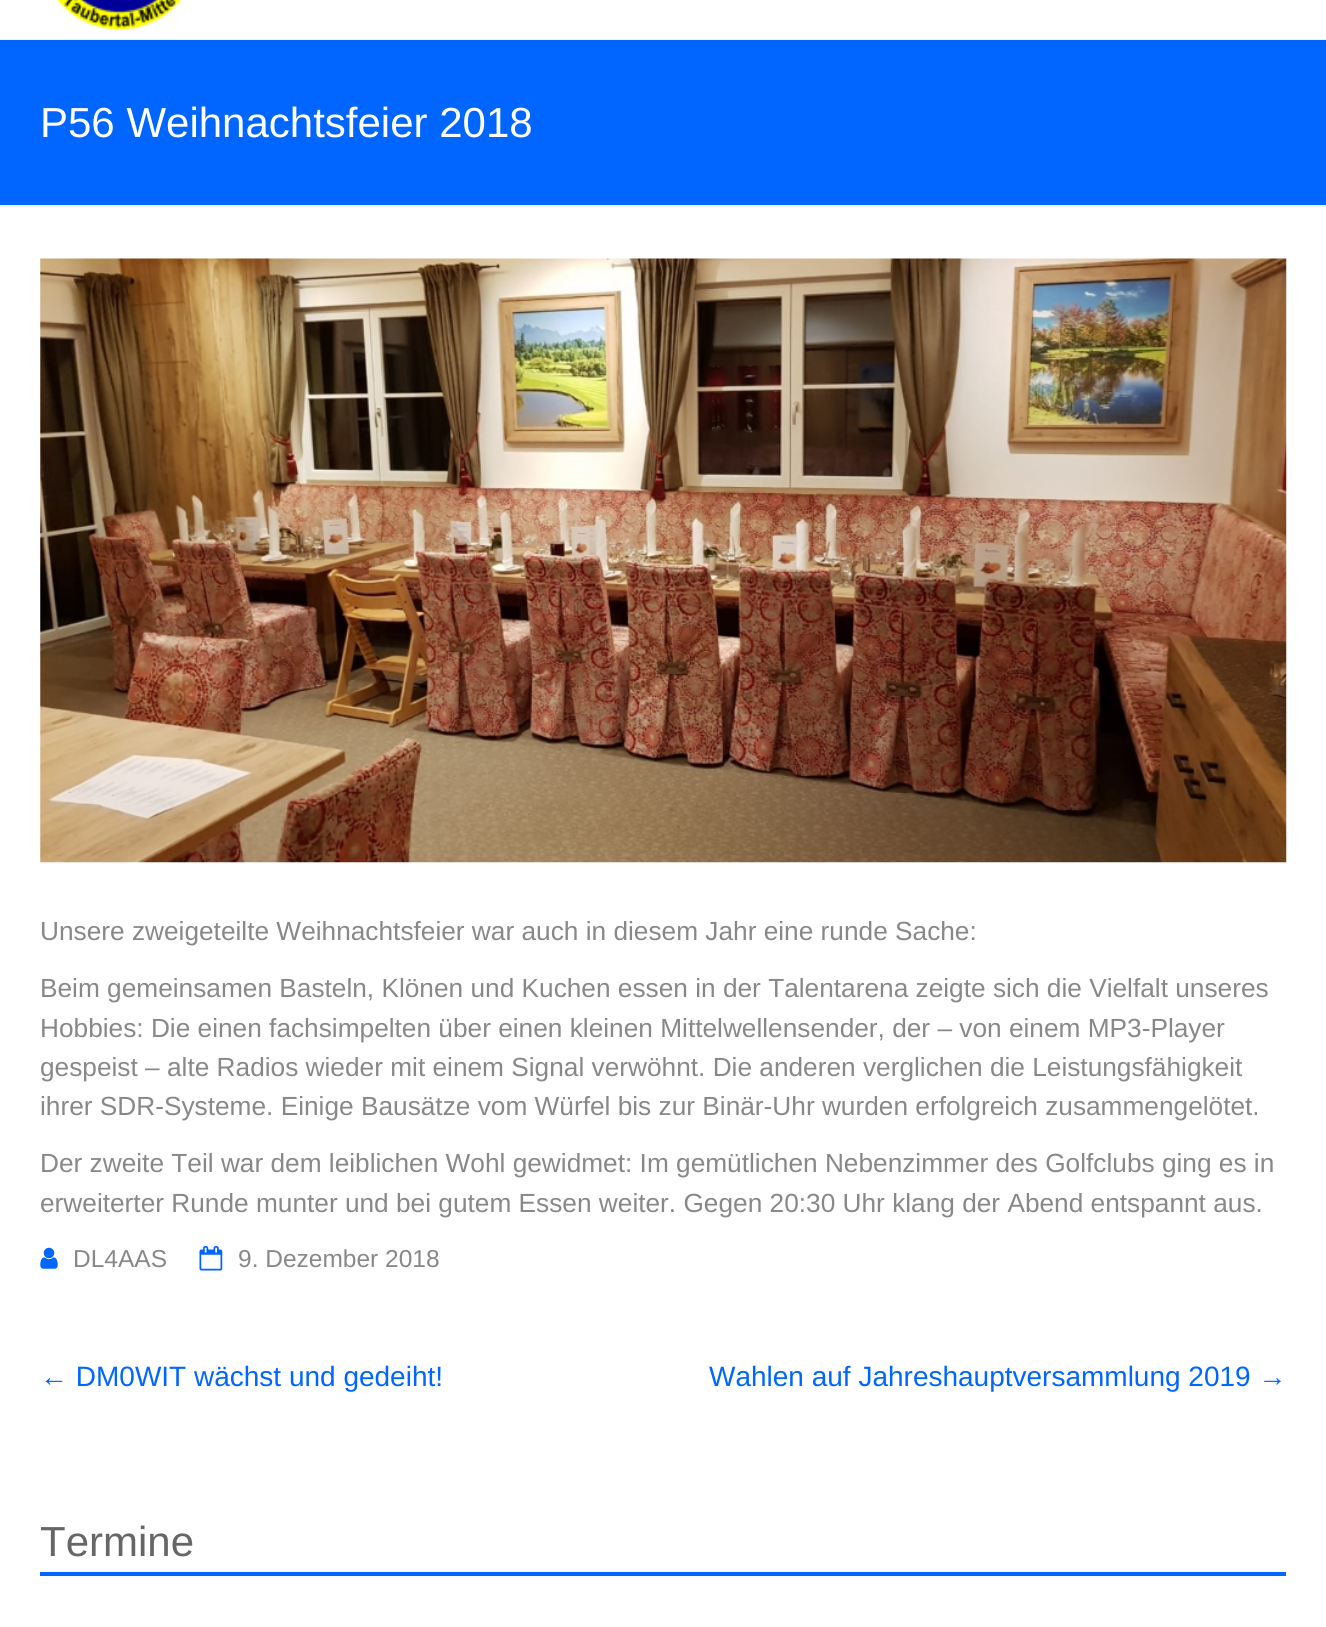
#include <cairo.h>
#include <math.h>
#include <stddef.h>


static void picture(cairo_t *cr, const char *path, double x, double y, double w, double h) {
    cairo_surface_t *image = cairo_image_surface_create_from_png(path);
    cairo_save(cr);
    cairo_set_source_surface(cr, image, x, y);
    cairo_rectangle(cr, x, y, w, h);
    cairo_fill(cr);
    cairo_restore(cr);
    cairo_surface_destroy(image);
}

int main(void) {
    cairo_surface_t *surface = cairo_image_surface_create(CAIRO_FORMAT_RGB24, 1326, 1627);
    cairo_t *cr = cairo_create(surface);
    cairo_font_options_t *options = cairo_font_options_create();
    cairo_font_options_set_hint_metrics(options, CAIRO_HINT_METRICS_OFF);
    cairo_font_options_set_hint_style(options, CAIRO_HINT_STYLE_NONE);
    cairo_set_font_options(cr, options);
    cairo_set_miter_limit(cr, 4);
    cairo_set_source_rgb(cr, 1, 1, 1);
    cairo_paint(cr);
    cairo_set_source_rgb(cr, 0.949, 0.949, 0.949);
    cairo_rectangle(cr, 0, 39, 1326, 1);
    cairo_fill(cr);
    picture(cr, "img1.png", 56, 0, 126, 30);
    cairo_set_source_rgb(cr, 0, 0.4, 1);
    cairo_rectangle(cr, 0, 40, 1326, 165);
    cairo_fill(cr);
    cairo_set_source_rgb(cr, 0.949, 0.949, 0.949);
    cairo_rectangle(cr, 0, 205, 1326, 2);
    cairo_fill(cr);
    cairo_select_font_face(cr, "Liberation Sans", CAIRO_FONT_SLANT_NORMAL, CAIRO_FONT_WEIGHT_NORMAL);
    cairo_set_font_size(cr, 42);
    cairo_set_source_rgb(cr, 1, 1, 1);
    cairo_move_to(cr, 40, 137);
    cairo_show_text(cr, "P56 Weihnachtsfeier 2018");
    picture(cr, "img2.png", 40, 258, 1247, 605);
    cairo_set_font_size(cr, 26.25);
    cairo_set_source_rgb(cr, 0.533, 0.533, 0.533);
    cairo_move_to(cr, 40, 940);
    cairo_show_text(cr, "Unsere zweigeteilte Weihnachtsfeier war auch in diesem Jahr eine runde Sache:");
    cairo_move_to(cr, 40, 997);
    cairo_show_text(cr, "Beim gemeinsamen Basteln, Klönen und Kuchen essen in der Talentarena zeigte sich die Vielfalt unseres");
    cairo_move_to(cr, 40, 1037);
    cairo_show_text(cr, "Hobbies: Die einen fachsimpelten über einen kleinen Mittelwellensender, der – von einem MP3-Player");
    cairo_move_to(cr, 40, 1076);
    cairo_show_text(cr, "gespeist – alte Radios wieder mit einem Signal verwöhnt. Die anderen verglichen die Leistungsfähigkeit");
    cairo_move_to(cr, 40, 1115);
    cairo_show_text(cr, "ihrer SDR-Systeme. Einige Bausätze vom Würfel bis zur Binär-Uhr wurden erfolgreich zusammengelötet.");
    cairo_move_to(cr, 40, 1172);
    cairo_show_text(cr, "Der zweite Teil war dem leiblichen Wohl gewidmet: Im gemütlichen Nebenzimmer des Golfclubs ging es in");
    cairo_move_to(cr, 40, 1212);
    cairo_show_text(cr, "erweiterter Runde munter und bei gutem Essen weiter. Gegen 20:30 Uhr klang der Abend entspannt aus.");
    picture(cr, "img3.png", 40, 1247, 18, 22);
    cairo_set_font_size(cr, 24.5);
    cairo_move_to(cr, 73, 1267);
    cairo_show_text(cr, "DL4AAS");
    picture(cr, "img4.png", 199, 1246, 24, 25);
    cairo_move_to(cr, 238, 1267);
    cairo_show_text(cr, "9. Dezember 2018");
    cairo_set_font_size(cr, 28);
    cairo_set_source_rgb(cr, 0, 0.4, 1);
    cairo_move_to(cr, 40, 1386);
    cairo_show_text(cr, "← DM0WIT wächst und gedeiht!");
    cairo_move_to(cr, 709, 1386);
    cairo_show_text(cr, "Wahlen auf Jahreshauptversammlung 2019 →");
    cairo_rectangle(cr, 40, 1572, 1246, 4);
    cairo_fill(cr);
    cairo_set_font_size(cr, 42);
    cairo_set_source_rgb(cr, 0.4, 0.4, 0.4);
    cairo_move_to(cr, 40, 1556);
    cairo_show_text(cr, "Termine");
    cairo_surface_write_to_png(surface, "page.png");
    cairo_font_options_destroy(options);
    cairo_destroy(cr);
    cairo_surface_destroy(surface);
    return 0;
}
